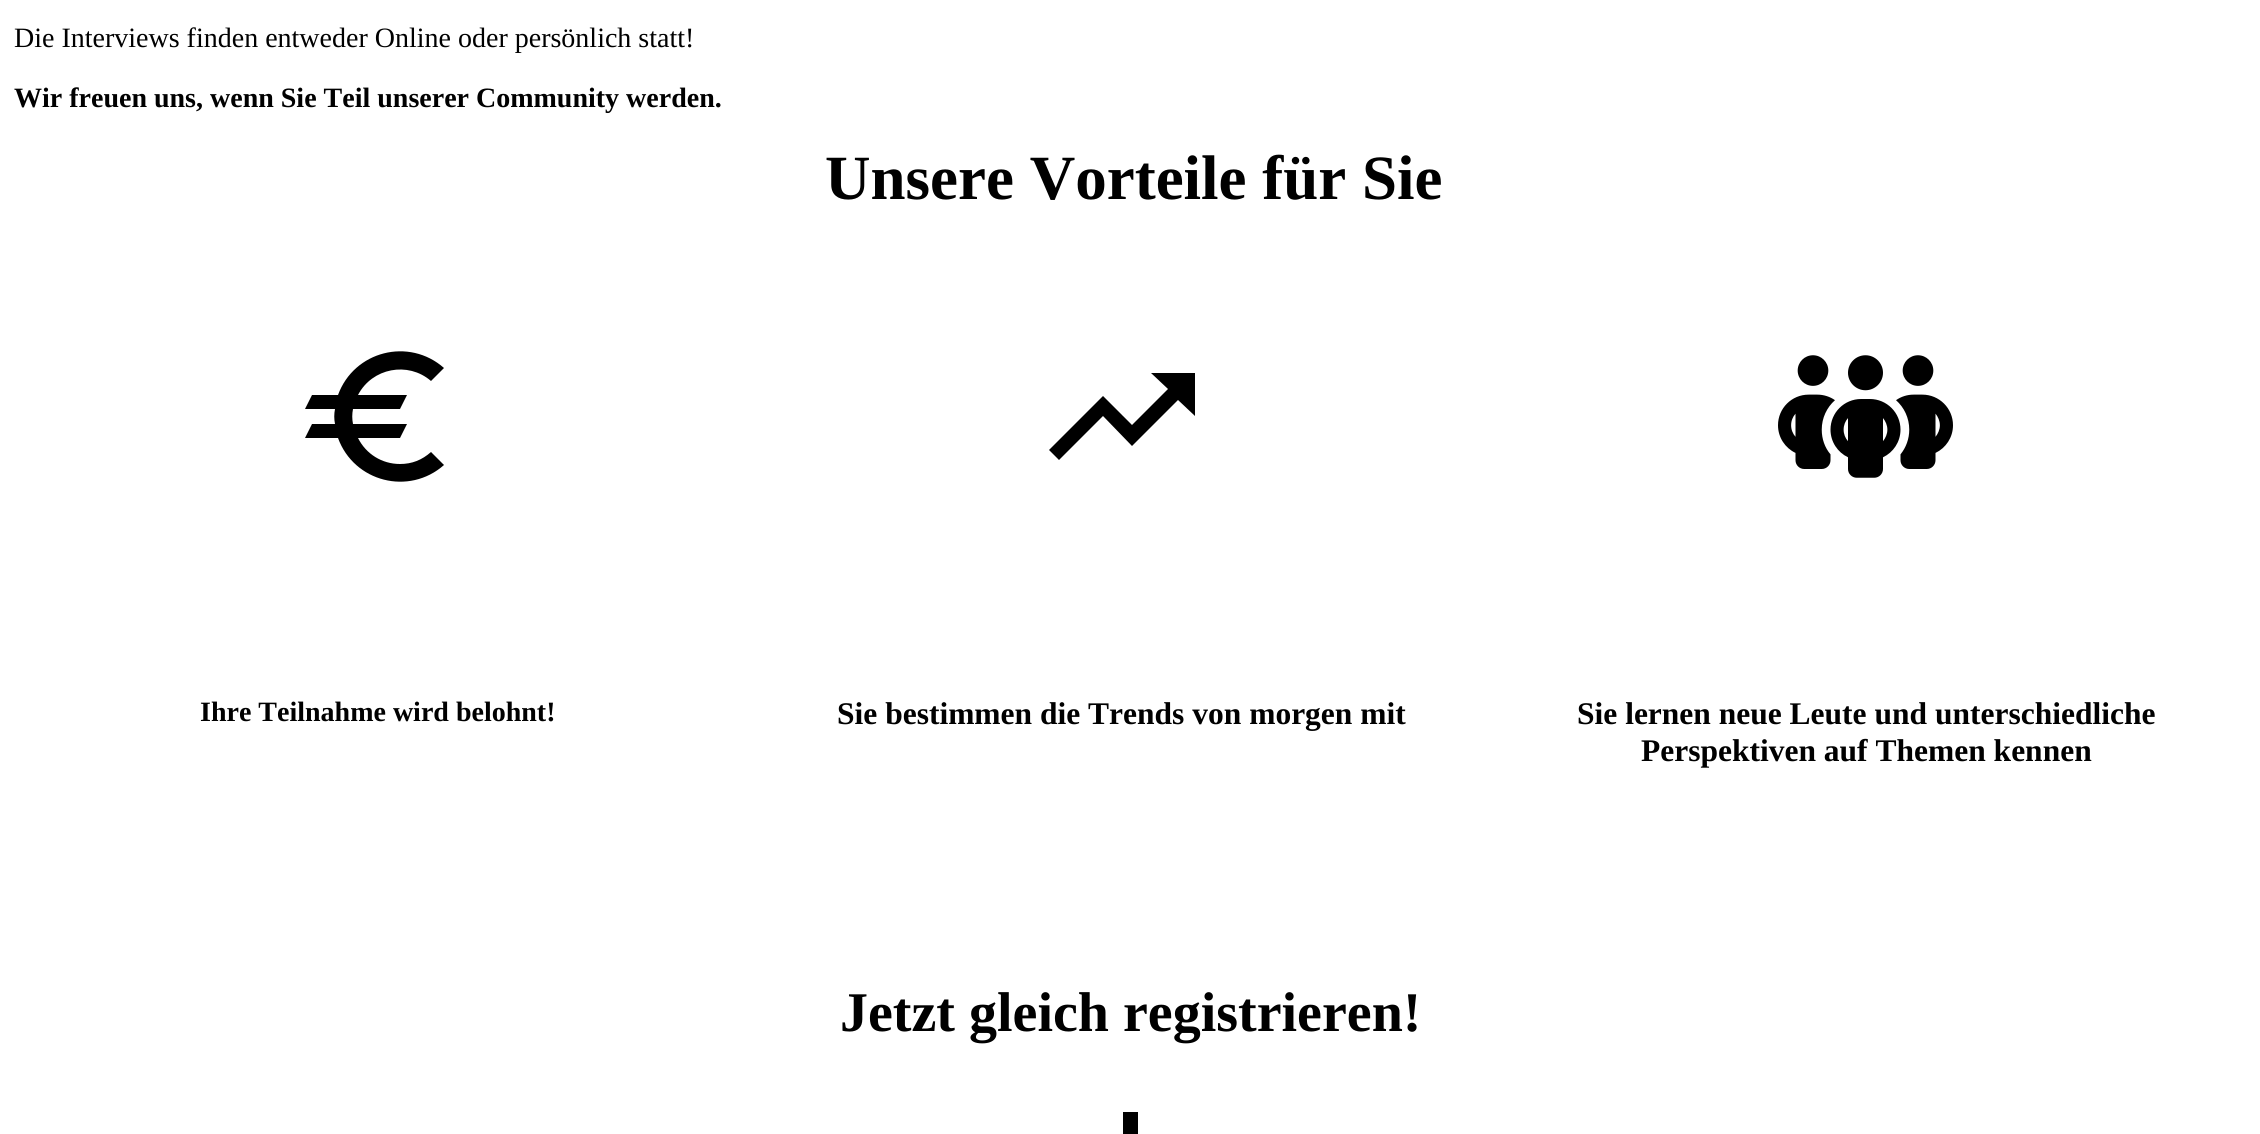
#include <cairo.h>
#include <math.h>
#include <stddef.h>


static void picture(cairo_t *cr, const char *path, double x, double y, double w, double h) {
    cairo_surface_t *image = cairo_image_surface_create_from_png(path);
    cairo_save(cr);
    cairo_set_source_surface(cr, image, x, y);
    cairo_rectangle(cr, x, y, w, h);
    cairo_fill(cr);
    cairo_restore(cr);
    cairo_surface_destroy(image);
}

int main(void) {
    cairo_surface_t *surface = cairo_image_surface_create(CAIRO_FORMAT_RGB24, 2260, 1134);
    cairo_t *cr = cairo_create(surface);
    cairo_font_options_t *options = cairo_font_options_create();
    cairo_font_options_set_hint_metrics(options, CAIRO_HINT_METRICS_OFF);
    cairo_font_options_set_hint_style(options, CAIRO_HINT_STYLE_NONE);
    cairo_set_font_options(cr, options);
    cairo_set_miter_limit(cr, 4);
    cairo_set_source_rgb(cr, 1, 1, 1);
    cairo_paint(cr);
    cairo_select_font_face(cr, "Liberation Serif", CAIRO_FONT_SLANT_NORMAL, CAIRO_FONT_WEIGHT_NORMAL);
    cairo_set_font_size(cr, 28);
    cairo_set_source_rgb(cr, 0, 0, 0);
    cairo_move_to(cr, 14, 47);
    cairo_show_text(cr, "Die Interviews finden entweder Online oder persönlich statt!");
    cairo_select_font_face(cr, "Liberation Serif", CAIRO_FONT_SLANT_NORMAL, CAIRO_FONT_WEIGHT_BOLD);
    cairo_move_to(cr, 14, 107);
    cairo_show_text(cr, "Wir freuen uns, wenn Sie Teil unserer Community werden.");
    cairo_set_font_size(cr, 63);
    cairo_move_to(cr, 825, 199);
    cairo_show_text(cr, "Unsere Vorteile für Sie");
    cairo_new_path(cr);
    cairo_move_to(cr, 400, 464);
    cairo_curve_to(cr, 382, 464, 366, 454, 358, 438);
    cairo_line_to(cr, 400, 438);
    cairo_line_to(cr, 407, 424);
    cairo_line_to(cr, 353, 424);
    cairo_curve_to(cr, 352, 419, 352, 414, 353, 409);
    cairo_line_to(cr, 400, 409);
    cairo_line_to(cr, 407, 395);
    cairo_line_to(cr, 358, 395);
    cairo_curve_to(cr, 372, 368, 408, 361, 431, 381);
    cairo_line_to(cr, 444, 368);
    cairo_curve_to(cr, 409, 337, 354, 351, 338, 395);
    cairo_line_to(cr, 312, 395);
    cairo_line_to(cr, 305, 409);
    cairo_line_to(cr, 335, 409);
    cairo_curve_to(cr, 334, 414, 334, 419, 335, 424);
    cairo_line_to(cr, 312, 424);
    cairo_line_to(cr, 305, 438);
    cairo_line_to(cr, 338, 438);
    cairo_curve_to(cr, 354, 482, 409, 496, 444, 465);
    cairo_line_to(cr, 431, 452);
    cairo_curve_to(cr, 422, 460, 412, 464, 400, 464);
    cairo_close_path(cr);
    cairo_fill(cr);
    cairo_new_path(cr);
    cairo_move_to(cr, 1151, 373);
    cairo_line_to(cr, 1168, 389);
    cairo_line_to(cr, 1132, 425);
    cairo_line_to(cr, 1103, 396);
    cairo_line_to(cr, 1049, 450);
    cairo_line_to(cr, 1059, 460);
    cairo_line_to(cr, 1103, 416);
    cairo_line_to(cr, 1132, 446);
    cairo_line_to(cr, 1178, 400);
    cairo_line_to(cr, 1195, 416);
    cairo_line_to(cr, 1195, 373);
    cairo_close_path(cr);
    cairo_fill(cr);
    picture(cr, "img1.png", 1778, 355, 175, 123);
    cairo_set_font_size(cr, 28);
    cairo_move_to(cr, 200, 721);
    cairo_show_text(cr, "Ihre Teilnahme wird belohnt!");
    cairo_set_font_size(cr, 31.5);
    cairo_move_to(cr, 837, 724);
    cairo_show_text(cr, "Sie bestimmen die Trends von morgen mit");
    cairo_move_to(cr, 1577, 724);
    cairo_show_text(cr, "Sie lernen neue Leute und unterschiedliche");
    cairo_move_to(cr, 1641, 761);
    cairo_show_text(cr, "Perspektiven auf Themen kennen");
    cairo_set_font_size(cr, 56);
    cairo_move_to(cr, 840, 1031);
    cairo_show_text(cr, "Jetzt gleich registrieren!");
    cairo_new_path(cr);
    cairo_move_to(cr, 1189, 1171);
    cairo_line_to(cr, 1179, 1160);
    cairo_line_to(cr, 1138, 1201);
    cairo_line_to(cr, 1138, 1112);
    cairo_line_to(cr, 1123, 1112);
    cairo_line_to(cr, 1123, 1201);
    cairo_line_to(cr, 1083, 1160);
    cairo_line_to(cr, 1072, 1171);
    cairo_line_to(cr, 1130, 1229);
    cairo_close_path(cr);
    cairo_fill(cr);
    cairo_surface_write_to_png(surface, "page.png");
    cairo_font_options_destroy(options);
    cairo_destroy(cr);
    cairo_surface_destroy(surface);
    return 0;
}
